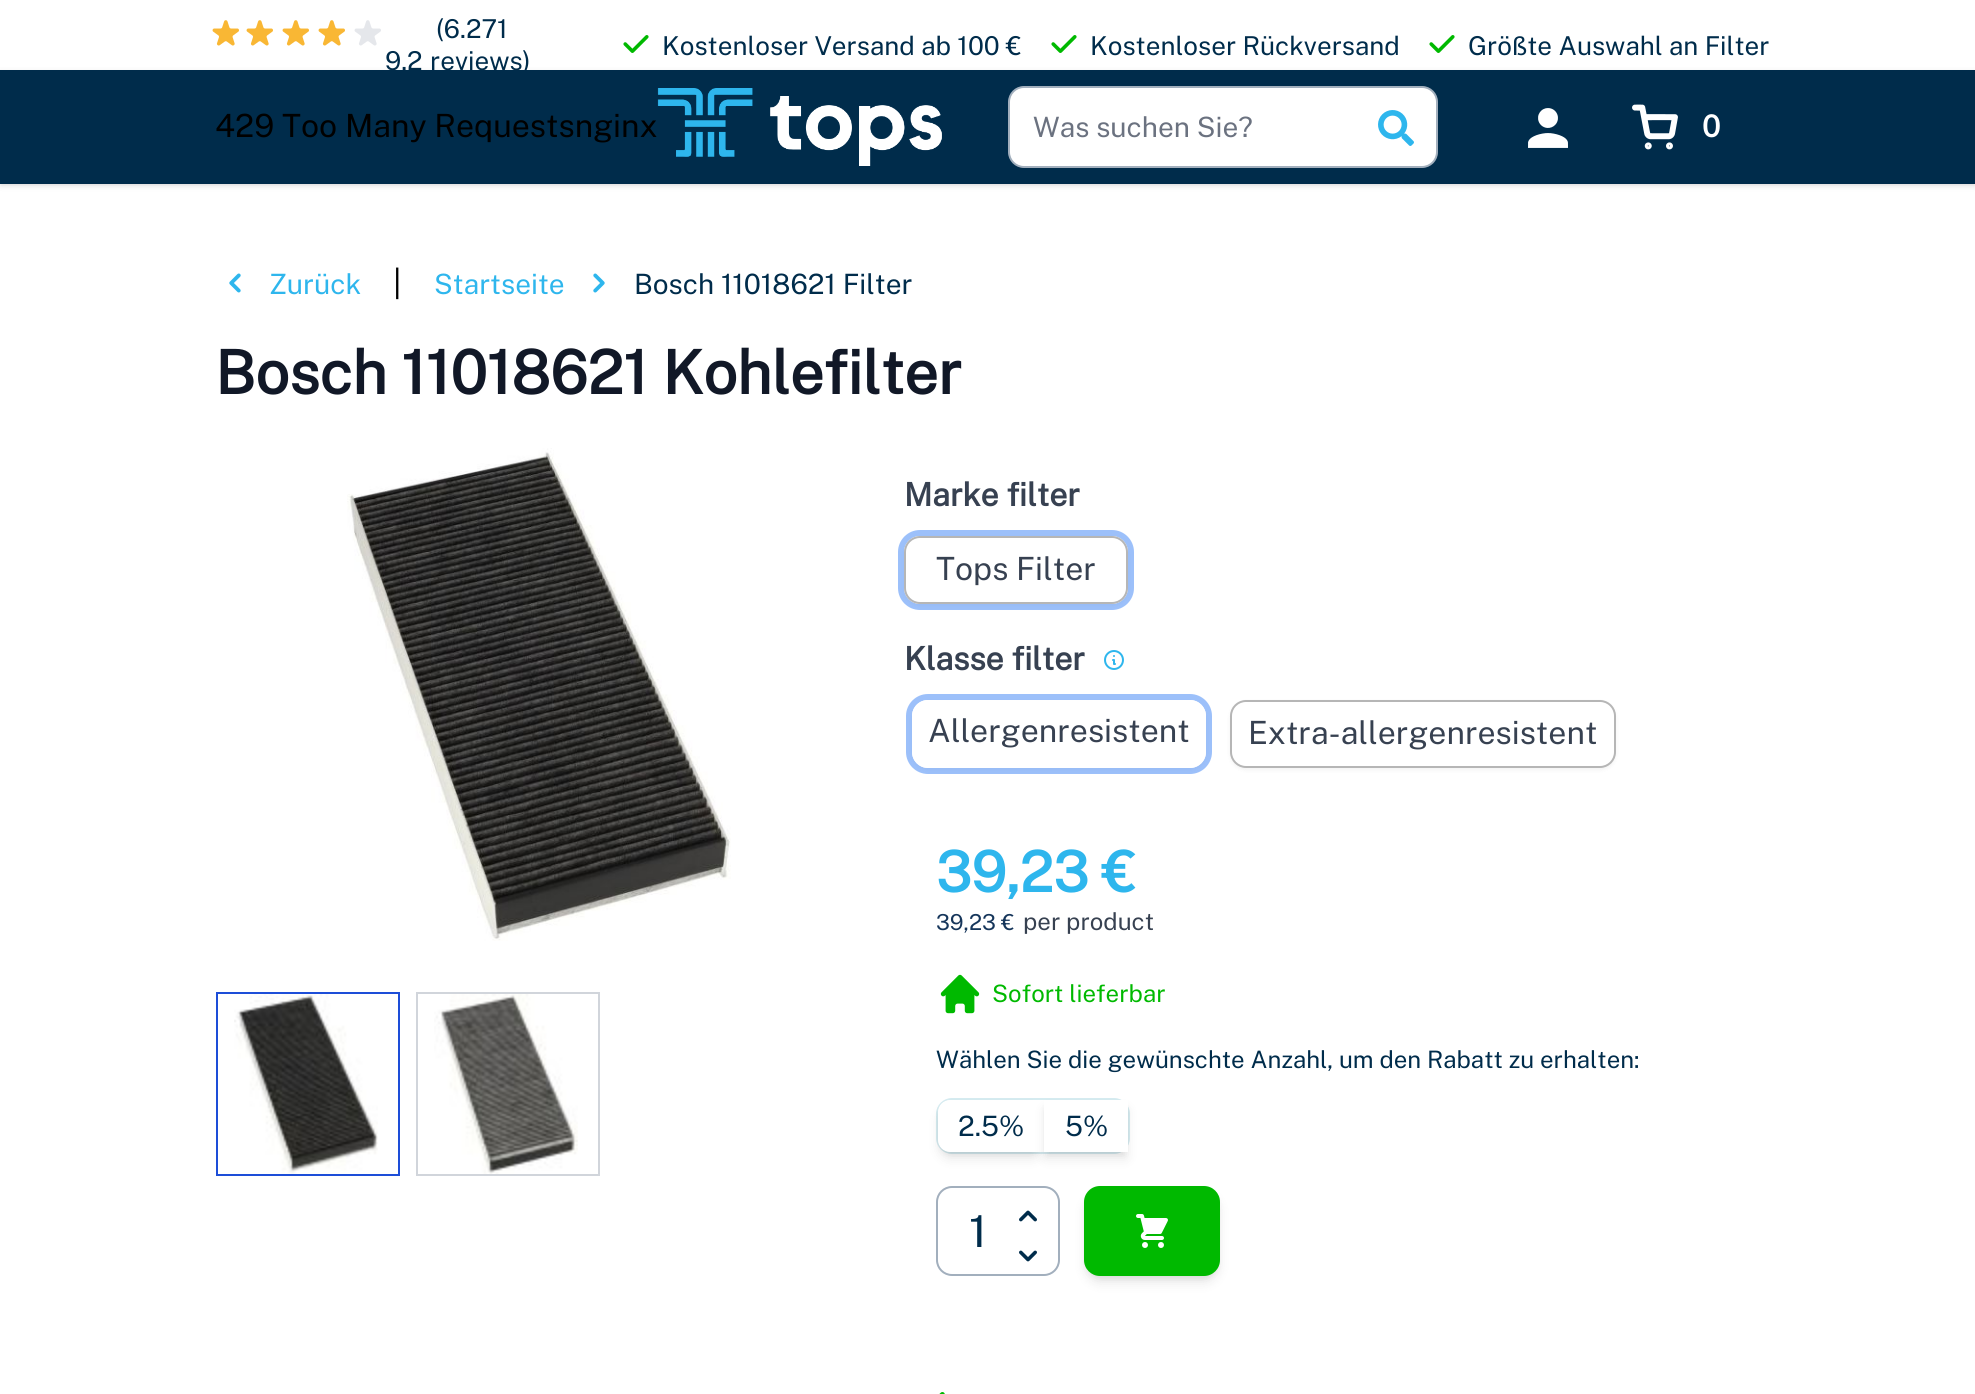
#include <cairo.h>
#include <math.h>
#include <stddef.h>


static void round_rect(cairo_t *cr, double x, double y, double w, double h, double r) {
    cairo_new_sub_path(cr);
    cairo_arc(cr, x + w - r, y + h - r, r, 0, M_PI / 2);
    cairo_arc(cr, x + r, y + h - r, r, M_PI / 2, M_PI);
    cairo_arc(cr, x + r, y + r, r, M_PI, 1.5 * M_PI);
    cairo_arc(cr, x + w - r, y + r, r, 1.5 * M_PI, 2 * M_PI);
    cairo_close_path(cr);
}

static void shadow(cairo_t *cr, double x, double y, double w, double h, double r, double blur, double alpha) {
    cairo_push_group_with_content(cr, CAIRO_CONTENT_ALPHA);
    cairo_set_operator(cr, CAIRO_OPERATOR_SOURCE);
    for (int i = 15; i >= -15 && fmin(w, h) + blur * i / 3 > 0; i -= 2) {
        double e = blur * i / 6;
        cairo_set_source_rgba(cr, 0, 0, 0, alpha * erfc((i - 1) / 8.5) / 2);
        round_rect(cr, x - e, y - e, w + 2 * e, h + 2 * e, fmax(0, fmin(r + e + blur * .6, fmin(w, h) / 2 + e)));
        cairo_fill(cr);
    }
    cairo_pattern_t *soft = cairo_pop_group(cr);
    cairo_mask(cr, soft);
    cairo_pattern_destroy(soft);
}

static void picture(cairo_t *cr, const char *path, double x, double y, double w, double h) {
    cairo_surface_t *image = cairo_image_surface_create_from_png(path);
    cairo_save(cr);
    cairo_set_source_surface(cr, image, x, y);
    cairo_rectangle(cr, x, y, w, h);
    cairo_fill(cr);
    cairo_restore(cr);
    cairo_surface_destroy(image);
}

int main(void) {
    cairo_surface_t *surface = cairo_image_surface_create(CAIRO_FORMAT_RGB24, 1975, 1394);
    cairo_t *cr = cairo_create(surface);
    cairo_font_options_t *options = cairo_font_options_create();
    cairo_font_options_set_hint_metrics(options, CAIRO_HINT_METRICS_OFF);
    cairo_font_options_set_hint_style(options, CAIRO_HINT_STYLE_NONE);
    cairo_set_font_options(cr, options);
    cairo_set_miter_limit(cr, 4);
    cairo_set_source_rgb(cr, 1, 1, 1);
    cairo_paint(cr);
    picture(cr, "img1.png", 212, 20, 27, 26);
    picture(cr, "img1.png", 246, 20, 27, 26);
    picture(cr, "img1.png", 282, 20, 27, 26);
    picture(cr, "img1.png", 318, 20, 27, 26);
    picture(cr, "img2.png", 354, 20, 27, 26);
    cairo_select_font_face(cr, "Public Sans", CAIRO_FONT_SLANT_NORMAL, CAIRO_FONT_WEIGHT_NORMAL);
    cairo_set_font_size(cr, 26);
    cairo_set_source_rgb(cr, 0, 0.173, 0.294);
    cairo_move_to(cr, 436, 38);
    cairo_show_text(cr, "(6.271");
    cairo_move_to(cr, 430, 70);
    cairo_show_text(cr, "reviews)");
    cairo_move_to(cr, 385, 70);
    cairo_show_text(cr, "9.2");
    picture(cr, "img3.png", 623, 35, 26, 18);
    cairo_move_to(cr, 662, 55);
    cairo_show_text(cr, "Kostenloser Versand ab 100 €");
    picture(cr, "img3.png", 1051, 35, 26, 18);
    cairo_move_to(cr, 1090, 55);
    cairo_show_text(cr, "Kostenloser Rückversand");
    picture(cr, "img3.png", 1429, 35, 26, 18);
    cairo_move_to(cr, 1468, 55);
    cairo_show_text(cr, "Größte Auswahl an Filter");
    cairo_set_source_rgb(cr, 0, 0, 0);
    shadow(cr, 2, 74, 1972, 110, 0, 2, 0.1);
    shadow(cr, 0, 72, 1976, 114, 0, 3, 0.1);
    cairo_set_source_rgb(cr, 0, 0.173, 0.294);
    cairo_rectangle(cr, 0, 70, 1975, 114);
    cairo_fill(cr);
    cairo_set_font_size(cr, 32);
    cairo_set_source_rgb(cr, 0, 0, 0);
    cairo_move_to(cr, 215, 137);
    cairo_show_text(cr, "429 Too Many Requestsnginx");
    picture(cr, "img4.png", 657, 88, 285, 78);
    cairo_set_source_rgb(cr, 1, 1, 1);
    round_rect(cr, 1009, 87, 428, 80, 15);
    cairo_fill_preserve(cr);
    cairo_set_source_rgb(cr, 0.635, 0.686, 0.741);
    cairo_stroke(cr);
    cairo_set_font_size(cr, 28);
    cairo_set_source_rgb(cr, 0.42, 0.447, 0.502);
    cairo_move_to(cr, 1033, 137);
    cairo_show_text(cr, "Was suchen Sie?");
    picture(cr, "img5.png", 1378, 110, 36, 36);
    picture(cr, "img6.png", 1528, 108, 40, 40);
    picture(cr, "img7.png", 1632, 104, 46, 46);
    cairo_select_font_face(cr, "Public Sans", CAIRO_FONT_SLANT_NORMAL, CAIRO_FONT_WEIGHT_BOLD);
    cairo_set_font_size(cr, 30);
    cairo_set_source_rgb(cr, 1, 1, 1);
    cairo_move_to(cr, 1702, 137);
    cairo_show_text(cr, "0");
    picture(cr, "img8.png", 229, 273, 12, 20);
    cairo_select_font_face(cr, "Public Sans", CAIRO_FONT_SLANT_NORMAL, CAIRO_FONT_WEIGHT_NORMAL);
    cairo_set_font_size(cr, 28);
    cairo_set_source_rgb(cr, 0.18, 0.714, 0.929);
    cairo_move_to(cr, 269, 294);
    cairo_show_text(cr, "Zurück");
    cairo_set_font_size(cr, 32);
    cairo_set_source_rgb(cr, 0, 0, 0);
    cairo_move_to(cr, 393, 294);
    cairo_show_text(cr, "|");
    cairo_set_font_size(cr, 28);
    cairo_set_source_rgb(cr, 0.18, 0.714, 0.929);
    cairo_move_to(cr, 434, 294);
    cairo_show_text(cr, "Startseite");
    picture(cr, "img9.png", 593, 273, 12, 20);
    cairo_set_source_rgb(cr, 0, 0.173, 0.294);
    cairo_move_to(cr, 634, 294);
    cairo_show_text(cr, "Bosch 11018621 Filter");
    cairo_select_font_face(cr, "Public Sans", CAIRO_FONT_SLANT_NORMAL, CAIRO_FONT_WEIGHT_BOLD);
    cairo_set_font_size(cr, 60);
    cairo_set_source_rgb(cr, 0.067, 0.094, 0.153);
    cairo_move_to(cr, 215, 394);
    cairo_show_text(cr, "Bosch 11018621 Kohlefilter");
    picture(cr, "img10.png", 347, 448, 384, 493);
    cairo_rectangle(cr, 217, 993, 182, 182);
    cairo_set_source_rgb(cr, 0.114, 0.306, 0.847);
    cairo_stroke(cr);
    picture(cr, "img11.png", 234, 994, 144, 180);
    cairo_rectangle(cr, 417, 993, 182, 182);
    cairo_set_source_rgb(cr, 0.82, 0.835, 0.859);
    cairo_stroke(cr);
    picture(cr, "img12.png", 434, 994, 144, 180);
    cairo_set_font_size(cr, 32);
    cairo_set_source_rgb(cr, 0.216, 0.255, 0.318);
    cairo_move_to(cr, 904, 506);
    cairo_show_text(cr, "Marke filter");
    cairo_set_source_rgb(cr, 0, 0, 0);
    shadow(cr, 904, 538, 224, 68, 16, 2, 0.05);
    round_rect(cr, 901, 533, 230, 74, 19);
    cairo_set_source_rgba(cr, 0.231, 0.51, 0.965, 0.5);
    cairo_set_line_width(cr, 6);
    cairo_stroke(cr);
    cairo_set_source_rgb(cr, 1, 1, 1);
    round_rect(cr, 905, 537, 222, 66, 15);
    cairo_fill_preserve(cr);
    cairo_set_source_rgb(cr, 0.714, 0.714, 0.714);
    cairo_set_line_width(cr, 2);
    cairo_stroke(cr);
    cairo_select_font_face(cr, "Public Sans", CAIRO_FONT_SLANT_NORMAL, CAIRO_FONT_WEIGHT_NORMAL);
    cairo_set_source_rgb(cr, 0.216, 0.255, 0.318);
    cairo_move_to(cr, 936, 580);
    cairo_show_text(cr, "Tops Filter");
    cairo_select_font_face(cr, "Public Sans", CAIRO_FONT_SLANT_NORMAL, CAIRO_FONT_WEIGHT_BOLD);
    cairo_move_to(cr, 904, 670);
    cairo_show_text(cr, "Klasse filter");
    picture(cr, "img13.png", 1104, 650, 20, 20);
    cairo_set_source_rgb(cr, 0, 0, 0);
    shadow(cr, 912, 702, 294, 68, 16, 2, 0.05);
    round_rect(cr, 909, 697, 300, 74, 19);
    cairo_set_source_rgba(cr, 0.231, 0.51, 0.965, 0.5);
    cairo_set_line_width(cr, 6);
    cairo_stroke(cr);
    cairo_set_source_rgb(cr, 1, 1, 1);
    round_rect(cr, 912, 700, 294, 68, 16);
    cairo_fill(cr);
    cairo_select_font_face(cr, "Public Sans", CAIRO_FONT_SLANT_NORMAL, CAIRO_FONT_WEIGHT_NORMAL);
    cairo_set_source_rgb(cr, 0.216, 0.255, 0.318);
    cairo_move_to(cr, 928, 742);
    cairo_show_text(cr, "Allergenresistent");
    cairo_set_source_rgb(cr, 0, 0, 0);
    shadow(cr, 1230, 702, 386, 68, 16, 2, 0.05);
    cairo_set_source_rgb(cr, 1, 1, 1);
    round_rect(cr, 1231, 701, 384, 66, 15);
    cairo_fill_preserve(cr);
    cairo_set_source_rgb(cr, 0.714, 0.714, 0.714);
    cairo_set_line_width(cr, 2);
    cairo_stroke(cr);
    cairo_set_source_rgb(cr, 0.216, 0.255, 0.318);
    cairo_move_to(cr, 1248, 744);
    cairo_show_text(cr, "Extra-allergenresistent");
    cairo_select_font_face(cr, "Public Sans", CAIRO_FONT_SLANT_NORMAL, CAIRO_FONT_WEIGHT_BOLD);
    cairo_set_font_size(cr, 56);
    cairo_set_source_rgb(cr, 0.18, 0.714, 0.929);
    cairo_move_to(cr, 936, 892);
    cairo_show_text(cr, "39,23 €");
    cairo_select_font_face(cr, "Public Sans", CAIRO_FONT_SLANT_NORMAL, CAIRO_FONT_WEIGHT_NORMAL);
    cairo_set_font_size(cr, 22);
    cairo_set_source_rgb(cr, 0.086, 0.212, 0.357);
    cairo_move_to(cr, 936, 930);
    cairo_show_text(cr, "39,23 €");
    cairo_set_font_size(cr, 24);
    cairo_set_source_rgb(cr, 0.216, 0.255, 0.318);
    cairo_move_to(cr, 1023, 930);
    cairo_show_text(cr, "per product");
    picture(cr, "img14.png", 940, 974, 40, 40);
    cairo_set_source_rgb(cr, 0, 0.725, 0);
    cairo_move_to(cr, 992, 1002);
    cairo_show_text(cr, "Sofort lieferbar");
    cairo_set_source_rgb(cr, 0, 0.173, 0.294);
    cairo_move_to(cr, 936, 1068);
    cairo_show_text(cr, "Wählen Sie die gewünschte Anzahl, um den Rabatt zu erhalten:");
    round_rect(cr, 937, 1099, 192, 54, 15);
    cairo_set_source_rgb(cr, 0.835, 0.918, 0.941);
    cairo_stroke(cr);
    cairo_set_source_rgb(cr, 0, 0, 0);
    shadow(cr, 942, 1108, 98, 44, 8, 4, 0.1);
    shadow(cr, 940, 1110, 102, 48, 10, 6, 0.1);
    cairo_set_source_rgb(cr, 1, 1, 1);
    cairo_new_path(cr);
    cairo_move_to(cr, 950, 1100);
    cairo_line_to(cr, 1044, 1100);
    cairo_line_to(cr, 1044, 1152);
    cairo_line_to(cr, 950, 1152);
    cairo_curve_to(cr, 943.5, 1152, 938, 1146.5, 938, 1140);
    cairo_line_to(cr, 938, 1112);
    cairo_curve_to(cr, 938, 1105.5, 943.5, 1100, 950, 1100);
    cairo_close_path(cr);
    cairo_fill(cr);
    cairo_set_font_size(cr, 28);
    cairo_set_source_rgb(cr, 0, 0.173, 0.294);
    cairo_move_to(cr, 958, 1136);
    cairo_show_text(cr, "2.5%");
    cairo_set_source_rgb(cr, 0, 0, 0);
    shadow(cr, 1048, 1108, 76, 44, 0, 4, 0.1);
    shadow(cr, 1046, 1110, 80, 48, 0, 6, 0.1);
    cairo_set_source_rgb(cr, 1, 1, 1);
    cairo_rectangle(cr, 1044, 1100, 84, 52);
    cairo_fill(cr);
    cairo_set_source_rgb(cr, 0, 0.173, 0.294);
    cairo_move_to(cr, 1065, 1136);
    cairo_show_text(cr, "5%");
    round_rect(cr, 937, 1187, 122, 88, 15);
    cairo_set_source_rgb(cr, 0.635, 0.686, 0.741);
    cairo_stroke(cr);
    cairo_set_font_size(cr, 44);
    cairo_set_source_rgb(cr, 0, 0.173, 0.294);
    cairo_move_to(cr, 969, 1247);
    cairo_show_text(cr, "1");
    picture(cr, "img15.png", 1019, 1210, 18, 12);
    picture(cr, "img16.png", 1019, 1250, 18, 12);
    cairo_set_source_rgb(cr, 0, 0, 0);
    shadow(cr, 1088, 1194, 128, 82, 12, 4, 0.1);
    shadow(cr, 1086, 1196, 132, 86, 14, 6, 0.1);
    cairo_set_source_rgb(cr, 0, 0.725, 0);
    round_rect(cr, 1084, 1186, 136, 90, 16);
    cairo_fill(cr);
    picture(cr, "img17.png", 1136, 1214, 32, 34);
    picture(cr, "img18.png", 939, 1392, 6, 2);
    cairo_surface_write_to_png(surface, "page.png");
    cairo_font_options_destroy(options);
    cairo_destroy(cr);
    cairo_surface_destroy(surface);
    return 0;
}
